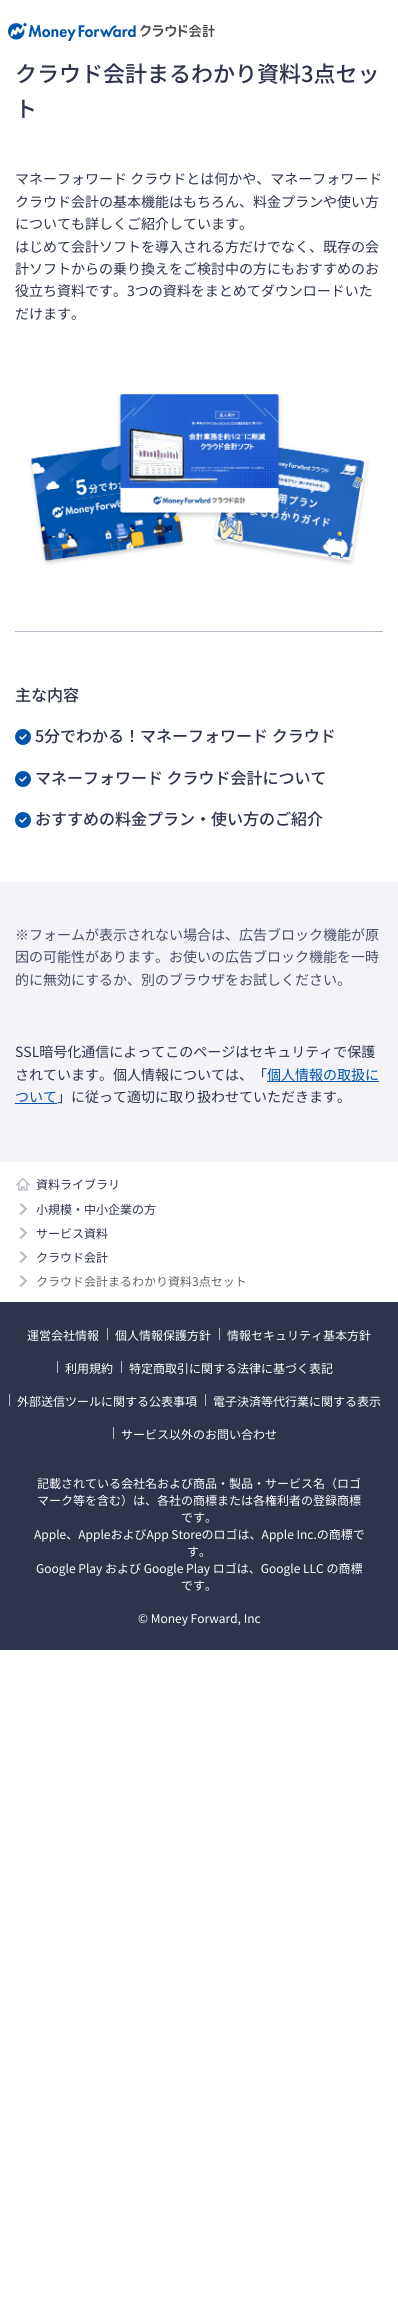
#include <cairo.h>
#include <math.h>
#include <stddef.h>


static void picture(cairo_t *cr, const char *path, double x, double y, double w, double h) {
    cairo_surface_t *image = cairo_image_surface_create_from_png(path);
    cairo_save(cr);
    cairo_set_source_surface(cr, image, x, y);
    cairo_rectangle(cr, x, y, w, h);
    cairo_fill(cr);
    cairo_restore(cr);
    cairo_surface_destroy(image);
}

int main(void) {
    cairo_surface_t *surface = cairo_image_surface_create(CAIRO_FORMAT_RGB24, 398, 2314);
    cairo_t *cr = cairo_create(surface);
    cairo_font_options_t *options = cairo_font_options_create();
    cairo_font_options_set_hint_metrics(options, CAIRO_HINT_METRICS_OFF);
    cairo_font_options_set_hint_style(options, CAIRO_HINT_STYLE_NONE);
    cairo_set_font_options(cr, options);
    cairo_set_miter_limit(cr, 4);
    cairo_set_source_rgb(cr, 1, 1, 1);
    cairo_paint(cr);
    picture(cr, "img1.png", 8, 23, 207, 18);
    cairo_select_font_face(cr, "Noto Sans JP Medium", CAIRO_FONT_SLANT_NORMAL, CAIRO_FONT_WEIGHT_NORMAL);
    cairo_set_font_size(cr, 22);
    cairo_set_source_rgb(cr, 0.176, 0.204, 0.294);
    cairo_move_to(cr, 15, 82);
    cairo_show_text(cr, "クラウド会計まるわかり資料3点セッ");
    cairo_move_to(cr, 15, 117);
    cairo_show_text(cr, "ト");
    cairo_select_font_face(cr, "Noto Sans JP", CAIRO_FONT_SLANT_NORMAL, CAIRO_FONT_WEIGHT_NORMAL);
    cairo_set_font_size(cr, 14);
    cairo_move_to(cr, 15, 184);
    cairo_show_text(cr, "マネーフォワード クラウドとは何かや、マネーフォワード");
    cairo_move_to(cr, 15, 207);
    cairo_show_text(cr, "クラウド会計の基本機能はもちろん、料金プランや使い方");
    cairo_move_to(cr, 15, 229);
    cairo_show_text(cr, "についても詳しくご紹介しています。");
    cairo_move_to(cr, 15, 252);
    cairo_show_text(cr, "はじめて会計ソフトを導入される方だけでなく、既存の会");
    cairo_move_to(cr, 15, 274);
    cairo_show_text(cr, "計ソフトからの乗り換えをご検討中の方にもおすすめのお");
    cairo_move_to(cr, 15, 296);
    cairo_show_text(cr, "役立ち資料です。3つの資料をまとめてダウンロードいた");
    cairo_move_to(cr, 15, 319);
    cairo_show_text(cr, "だけます。");
    picture(cr, "img2.png", 29, 393, 341, 172);
    cairo_set_source_rgb(cr, 0.722, 0.737, 0.788);
    cairo_rectangle(cr, 15, 631, 368, 1);
    cairo_fill(cr);
    cairo_select_font_face(cr, "Noto Sans JP Medium", CAIRO_FONT_SLANT_NORMAL, CAIRO_FONT_WEIGHT_NORMAL);
    cairo_set_font_size(cr, 16);
    cairo_set_source_rgb(cr, 0.176, 0.204, 0.294);
    cairo_move_to(cr, 15, 701);
    cairo_show_text(cr, "主な内容");
    picture(cr, "img3.png", 15, 729, 16, 16);
    cairo_move_to(cr, 35, 742);
    cairo_show_text(cr, "5分でわかる！マネーフォワード クラウド");
    picture(cr, "img3.png", 15, 771, 16, 16);
    cairo_move_to(cr, 35, 784);
    cairo_show_text(cr, "マネーフォワード クラウド会計について");
    picture(cr, "img3.png", 15, 812, 16, 16);
    cairo_move_to(cr, 35, 825);
    cairo_show_text(cr, "おすすめの料金プラン・使い方のご紹介");
    cairo_set_source_rgb(cr, 0.957, 0.957, 0.969);
    cairo_rectangle(cr, 0, 882, 398, 280);
    cairo_fill(cr);
    cairo_select_font_face(cr, "Noto Sans JP", CAIRO_FONT_SLANT_NORMAL, CAIRO_FONT_WEIGHT_NORMAL);
    cairo_set_font_size(cr, 14);
    cairo_set_source_rgb(cr, 0.282, 0.31, 0.396);
    cairo_move_to(cr, 15, 940);
    cairo_show_text(cr, "※フォームが表示されない場合は、広告ブロック機能が原");
    cairo_move_to(cr, 15, 962);
    cairo_show_text(cr, "因の可能性があります。お使いの広告ブロック機能を一時");
    cairo_move_to(cr, 15, 985);
    cairo_show_text(cr, "的に無効にするか、別のブラウザをお試しください。");
    cairo_set_source_rgb(cr, 0.176, 0.204, 0.294);
    cairo_move_to(cr, 15, 1057);
    cairo_show_text(cr, "SSL暗号化通信によってこのページはセキュリティで保護");
    cairo_move_to(cr, 15, 1080);
    cairo_show_text(cr, "されています。個人情報については、「");
    cairo_set_source_rgb(cr, 0, 0.329, 0.675);
    cairo_rectangle(cr, 267, 1081, 112, 1);
    cairo_fill(cr);
    cairo_move_to(cr, 267, 1080);
    cairo_show_text(cr, "個人情報の取扱に");
    cairo_move_to(cr, 15, 1102);
    cairo_show_text(cr, "ついて");
    cairo_rectangle(cr, 15, 1103, 42, 1);
    cairo_fill(cr);
    cairo_set_source_rgb(cr, 0.176, 0.204, 0.294);
    cairo_move_to(cr, 57, 1102);
    cairo_show_text(cr, "」に従って適切に取り扱わせていただきます。");
    picture(cr, "img4.png", 16, 1177, 14, 14);
    cairo_set_font_size(cr, 12);
    cairo_move_to(cr, 36, 1189);
    cairo_show_text(cr, "資料ライブラリ");
    picture(cr, "img5.png", 19, 1203, 9, 12);
    cairo_move_to(cr, 36, 1214);
    cairo_show_text(cr, "小規模・中小企業の方");
    picture(cr, "img5.png", 19, 1227, 9, 12);
    cairo_move_to(cr, 36, 1238);
    cairo_show_text(cr, "サービス資料");
    picture(cr, "img5.png", 19, 1251, 9, 12);
    cairo_move_to(cr, 36, 1262);
    cairo_show_text(cr, "クラウド会計");
    picture(cr, "img5.png", 19, 1275, 9, 12);
    cairo_set_source_rgb(cr, 0.4, 0.4, 0.4);
    cairo_move_to(cr, 36, 1286);
    cairo_show_text(cr, "クラウド会計まるわかり資料3点セット");
    cairo_set_source_rgb(cr, 0.176, 0.204, 0.294);
    cairo_rectangle(cr, 0, 1302, 398, 348);
    cairo_fill(cr);
    cairo_set_source_rgb(cr, 1, 1, 1);
    cairo_move_to(cr, 27, 1340);
    cairo_show_text(cr, "運営会社情報");
    cairo_set_source_rgb(cr, 0.722, 0.737, 0.788);
    cairo_rectangle(cr, 107, 1328, 1, 12);
    cairo_fill(cr);
    cairo_set_source_rgb(cr, 1, 1, 1);
    cairo_move_to(cr, 115, 1340);
    cairo_show_text(cr, "個人情報保護方針");
    cairo_set_source_rgb(cr, 0.722, 0.737, 0.788);
    cairo_rectangle(cr, 219, 1328, 1, 12);
    cairo_fill(cr);
    cairo_set_source_rgb(cr, 1, 1, 1);
    cairo_move_to(cr, 227, 1340);
    cairo_show_text(cr, "情報セキュリティ基本方針");
    cairo_set_source_rgb(cr, 0.722, 0.737, 0.788);
    cairo_rectangle(cr, 57, 1361, 1, 12);
    cairo_fill(cr);
    cairo_set_source_rgb(cr, 1, 1, 1);
    cairo_move_to(cr, 65, 1373);
    cairo_show_text(cr, "利用規約");
    cairo_set_source_rgb(cr, 0.722, 0.737, 0.788);
    cairo_rectangle(cr, 121, 1361, 1, 12);
    cairo_fill(cr);
    cairo_set_source_rgb(cr, 1, 1, 1);
    cairo_move_to(cr, 129, 1373);
    cairo_show_text(cr, "特定商取引に関する法律に基づく表記");
    cairo_set_source_rgb(cr, 0.722, 0.737, 0.788);
    cairo_rectangle(cr, 9, 1394, 1, 12);
    cairo_fill(cr);
    cairo_set_source_rgb(cr, 1, 1, 1);
    cairo_move_to(cr, 17, 1406);
    cairo_show_text(cr, "外部送信ツールに関する公表事項");
    cairo_set_source_rgb(cr, 0.722, 0.737, 0.788);
    cairo_rectangle(cr, 205, 1394, 1, 12);
    cairo_fill(cr);
    cairo_set_source_rgb(cr, 1, 1, 1);
    cairo_move_to(cr, 213, 1406);
    cairo_show_text(cr, "電子決済等代行業に関する表示");
    cairo_set_source_rgb(cr, 0.722, 0.737, 0.788);
    cairo_rectangle(cr, 113, 1427, 1, 12);
    cairo_fill(cr);
    cairo_set_source_rgb(cr, 1, 1, 1);
    cairo_move_to(cr, 121, 1439);
    cairo_show_text(cr, "サービス以外のお問い合わせ");
    cairo_move_to(cr, 37, 1488);
    cairo_show_text(cr, "記載されている会社名および商品・製品・サービス名（ロゴ");
    cairo_move_to(cr, 37, 1505);
    cairo_show_text(cr, "マーク等を含む）は、各社の商標または各権利者の登録商標");
    cairo_move_to(cr, 181, 1522);
    cairo_show_text(cr, "です。");
    cairo_move_to(cr, 34, 1539);
    cairo_show_text(cr, "Apple、AppleおよびApp Storeのロゴは、Apple Inc.の商標で");
    cairo_move_to(cr, 187, 1556);
    cairo_show_text(cr, "す。");
    cairo_move_to(cr, 36, 1573);
    cairo_show_text(cr, "Google Play および Google Play ロゴは、Google LLC の商標");
    cairo_move_to(cr, 181, 1590);
    cairo_show_text(cr, "です。");
    cairo_move_to(cr, 138, 1623);
    cairo_show_text(cr, "© Money Forward, Inc");
    cairo_surface_write_to_png(surface, "page.png");
    cairo_font_options_destroy(options);
    cairo_destroy(cr);
    cairo_surface_destroy(surface);
    return 0;
}
